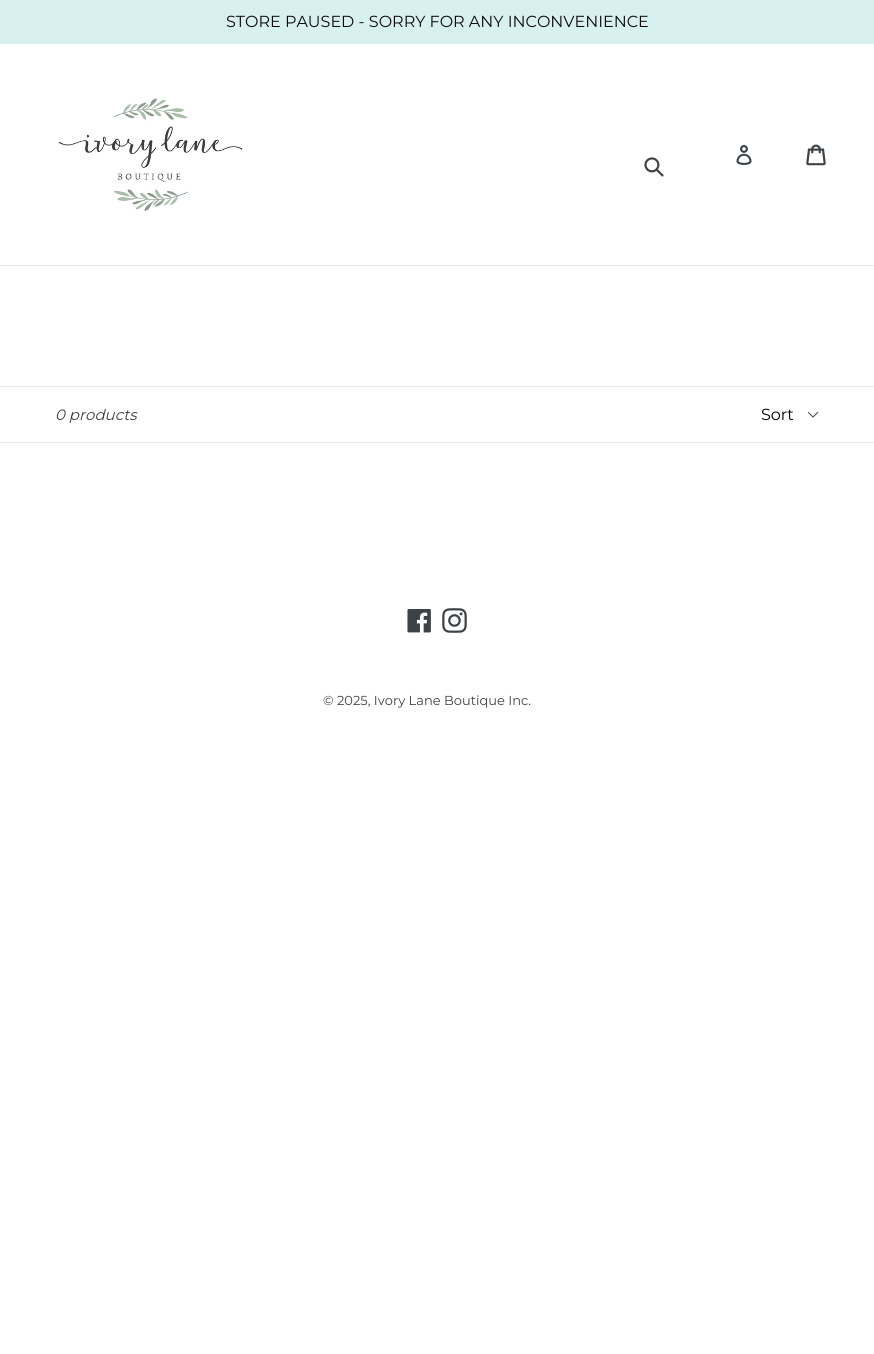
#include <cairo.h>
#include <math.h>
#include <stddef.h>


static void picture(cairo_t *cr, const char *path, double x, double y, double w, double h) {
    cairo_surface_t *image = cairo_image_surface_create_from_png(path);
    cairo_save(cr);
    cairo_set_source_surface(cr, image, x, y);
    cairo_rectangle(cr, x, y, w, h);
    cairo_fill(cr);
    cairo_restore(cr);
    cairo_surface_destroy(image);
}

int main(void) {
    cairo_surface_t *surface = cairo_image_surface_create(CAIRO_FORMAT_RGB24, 874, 1354);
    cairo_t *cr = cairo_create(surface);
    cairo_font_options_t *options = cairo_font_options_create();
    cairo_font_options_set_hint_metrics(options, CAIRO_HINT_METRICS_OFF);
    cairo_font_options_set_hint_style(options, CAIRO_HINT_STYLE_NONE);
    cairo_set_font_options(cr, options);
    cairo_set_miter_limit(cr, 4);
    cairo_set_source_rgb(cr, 1, 1, 1);
    cairo_paint(cr);
    cairo_set_source_rgb(cr, 0.851, 0.941, 0.945);
    cairo_rectangle(cr, 0, 0, 874, 44);
    cairo_fill(cr);
    cairo_select_font_face(cr, "Montserrat", CAIRO_FONT_SLANT_NORMAL, CAIRO_FONT_WEIGHT_NORMAL);
    cairo_set_font_size(cr, 16);
    cairo_set_source_rgb(cr, 0.051, 0.047, 0.047);
    cairo_move_to(cr, 226, 27);
    cairo_show_text(cr, "STORE PAUSED - SORRY FOR ANY INCONVENIENCE");
    cairo_set_source_rgb(cr, 0.91, 0.914, 0.922);
    cairo_rectangle(cr, 0, 265, 874, 1);
    cairo_fill(cr);
    picture(cr, "img1.png", 57, 97, 186, 115);
    picture(cr, "img2.png", 736, 145, 16, 20);
    picture(cr, "img3.png", 806, 144, 20, 22);
    picture(cr, "img4.png", 644, 157, 20, 20);
    cairo_rectangle(cr, 0, 386, 874, 1);
    cairo_fill(cr);
    cairo_rectangle(cr, 0, 442, 874, 1);
    cairo_fill(cr);
    cairo_select_font_face(cr, "Montserrat", CAIRO_FONT_SLANT_ITALIC, CAIRO_FONT_WEIGHT_NORMAL);
    cairo_set_font_size(cr, 15);
    cairo_set_source_rgb(cr, 0.239, 0.259, 0.275);
    cairo_move_to(cr, 55, 420);
    cairo_show_text(cr, "0 products");
    picture(cr, "img5.png", 807, 411, 12, 7);
    cairo_select_font_face(cr, "Montserrat", CAIRO_FONT_SLANT_NORMAL, CAIRO_FONT_WEIGHT_NORMAL);
    cairo_set_font_size(cr, 16);
    cairo_set_source_rgb(cr, 0, 0, 0);
    cairo_move_to(cr, 761, 420);
    cairo_show_text(cr, "Sort");
    picture(cr, "img6.png", 407, 609, 24, 24);
    picture(cr, "img7.png", 442, 608, 25, 25);
    cairo_set_font_size(cr, 13);
    cairo_set_source_rgb(cr, 0.239, 0.259, 0.275);
    cairo_move_to(cr, 323, 705);
    cairo_show_text(cr, "© 2025, Ivory Lane Boutique Inc.");
    cairo_surface_write_to_png(surface, "page.png");
    cairo_font_options_destroy(options);
    cairo_destroy(cr);
    cairo_surface_destroy(surface);
    return 0;
}
